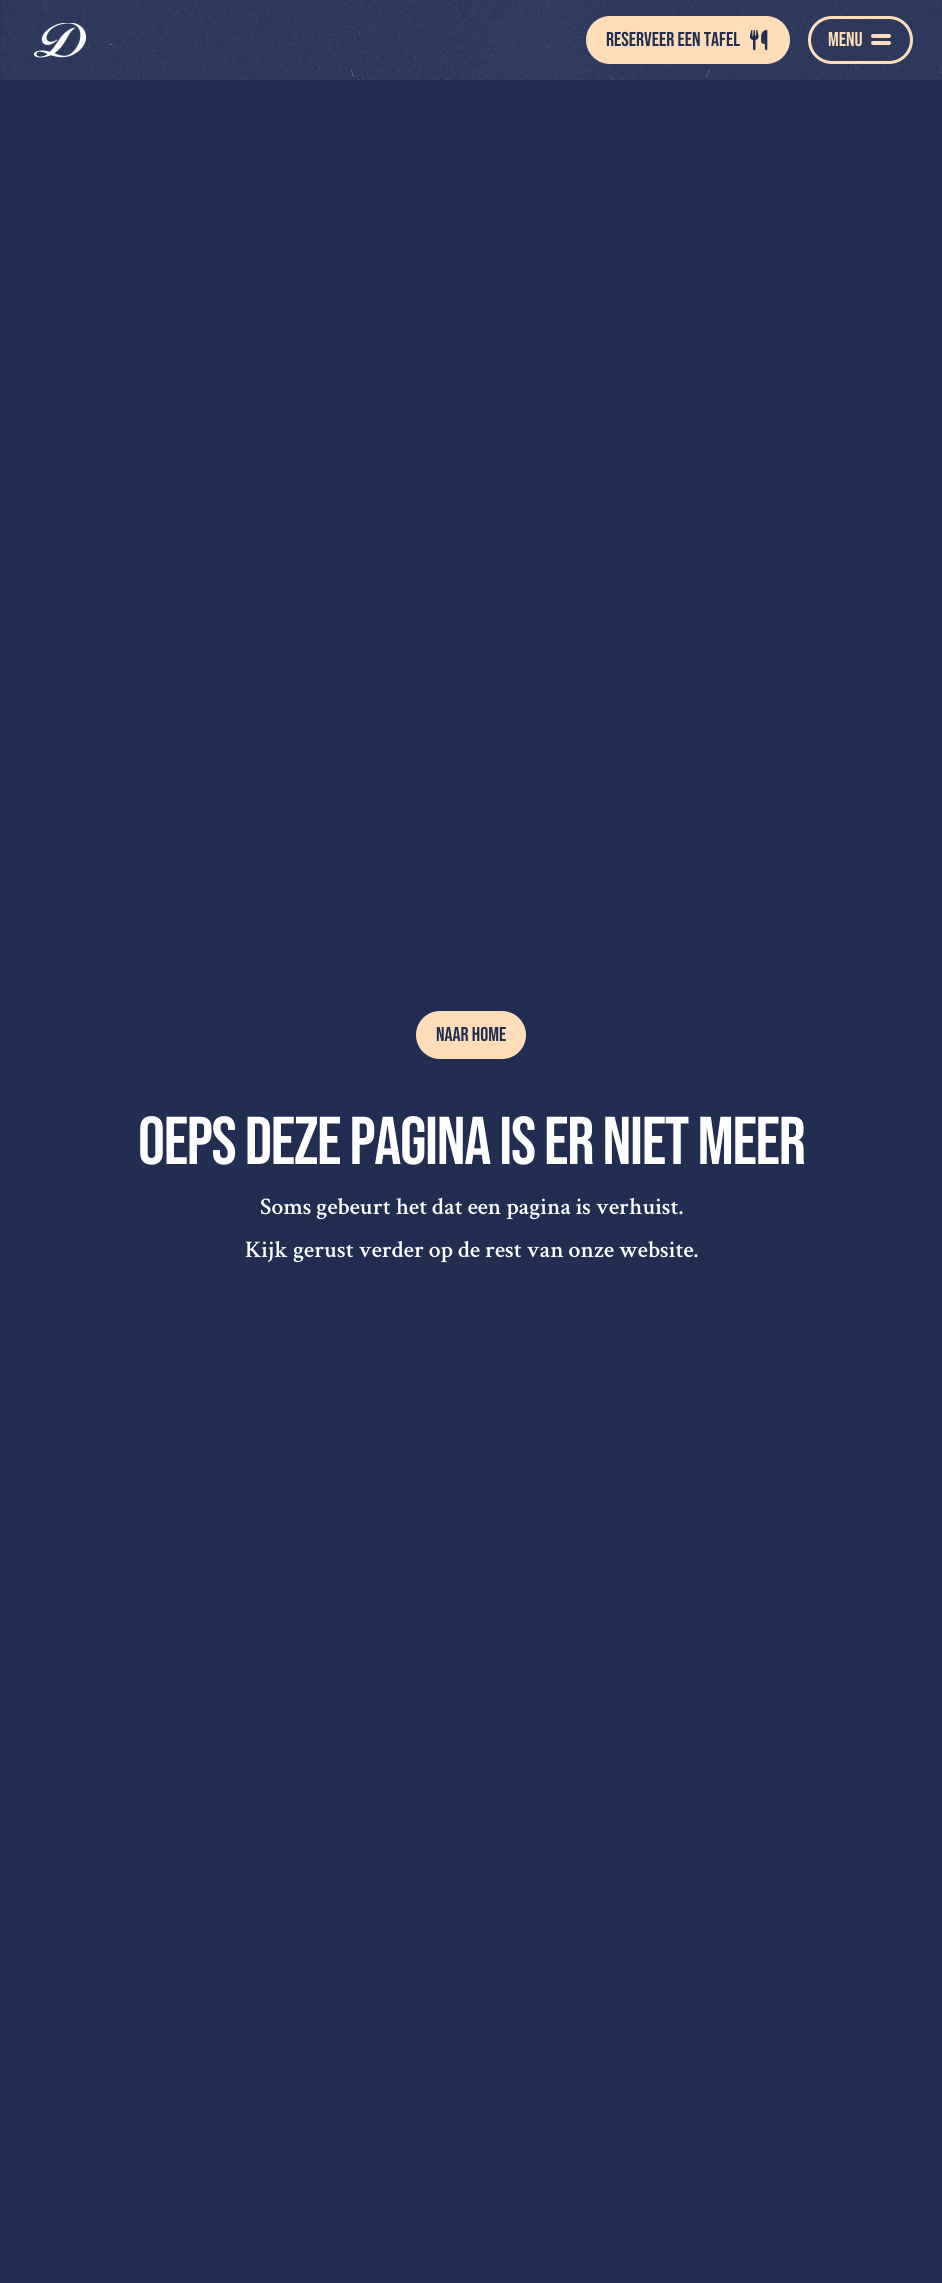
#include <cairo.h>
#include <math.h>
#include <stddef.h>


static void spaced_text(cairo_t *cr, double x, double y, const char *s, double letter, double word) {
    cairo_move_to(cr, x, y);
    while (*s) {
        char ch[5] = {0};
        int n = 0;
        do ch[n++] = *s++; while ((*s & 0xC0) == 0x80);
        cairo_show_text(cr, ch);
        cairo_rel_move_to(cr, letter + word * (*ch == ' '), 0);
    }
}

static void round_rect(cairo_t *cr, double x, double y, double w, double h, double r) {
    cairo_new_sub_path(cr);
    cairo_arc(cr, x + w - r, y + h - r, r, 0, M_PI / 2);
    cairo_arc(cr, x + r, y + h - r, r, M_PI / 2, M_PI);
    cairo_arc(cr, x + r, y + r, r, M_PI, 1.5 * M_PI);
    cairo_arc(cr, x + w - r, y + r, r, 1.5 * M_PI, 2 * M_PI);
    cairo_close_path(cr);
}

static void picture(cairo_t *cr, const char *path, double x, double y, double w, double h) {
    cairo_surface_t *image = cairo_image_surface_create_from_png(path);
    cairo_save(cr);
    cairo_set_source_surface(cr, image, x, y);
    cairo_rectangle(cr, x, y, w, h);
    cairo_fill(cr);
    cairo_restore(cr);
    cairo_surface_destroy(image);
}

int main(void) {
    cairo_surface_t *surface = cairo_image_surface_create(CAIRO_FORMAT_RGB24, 942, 2283);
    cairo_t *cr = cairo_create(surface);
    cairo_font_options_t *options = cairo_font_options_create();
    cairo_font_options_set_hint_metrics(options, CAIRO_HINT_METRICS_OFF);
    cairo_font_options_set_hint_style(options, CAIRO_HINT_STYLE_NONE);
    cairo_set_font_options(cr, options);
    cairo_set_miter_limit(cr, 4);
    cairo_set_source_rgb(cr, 0.129, 0.18, 0.322);
    cairo_paint(cr);
    picture(cr, "img1.png", 0, 0, 942, 80);
    picture(cr, "img2.png", 34, 23, 52, 35);
    cairo_set_source_rgb(cr, 1, 0.867, 0.722);
    round_rect(cr, 586, 16, 204, 48, 24);
    cairo_fill(cr);
    cairo_select_font_face(cr, "Bebas Neue", CAIRO_FONT_SLANT_NORMAL, CAIRO_FONT_WEIGHT_NORMAL);
    cairo_set_font_size(cr, 20);
    cairo_set_source_rgb(cr, 0.129, 0.18, 0.322);
    cairo_move_to(cr, 606, 46);
    cairo_show_text(cr, "Reserveer een tafel");
    picture(cr, "img3.png", 749, 29, 19, 22);
    cairo_set_source_rgb(cr, 1, 0.867, 0.722);
    round_rect(cr, 871, 34, 20, 4, 2);
    cairo_fill(cr);
    round_rect(cr, 871, 41, 20, 4, 2);
    cairo_fill(cr);
    round_rect(cr, 809.5, 17.5, 102, 45, 22.5);
    cairo_set_line_width(cr, 3);
    cairo_stroke(cr);
    cairo_move_to(cr, 828, 46);
    cairo_show_text(cr, "Menu");
    round_rect(cr, 416, 1011, 110, 48, 24);
    cairo_fill(cr);
    cairo_set_source_rgb(cr, 0.129, 0.18, 0.322);
    cairo_move_to(cr, 436, 1041);
    cairo_show_text(cr, "Naar home");
    cairo_set_font_size(cr, 67.5);
    cairo_set_source_rgb(cr, 1, 1, 1);
    spaced_text(cr, 138, 1164, "Oeps deze pagina is er niet meer", -1.35, 0);
    cairo_select_font_face(cr, "Crimson Text SemiBold", CAIRO_FONT_SLANT_NORMAL, CAIRO_FONT_WEIGHT_NORMAL);
    cairo_set_font_size(cr, 23.75);
    cairo_move_to(cr, 260, 1214);
    cairo_show_text(cr, "Soms gebeurt het dat een pagina is verhuist.");
    cairo_move_to(cr, 245, 1257);
    cairo_show_text(cr, "Kijk gerust verder op de rest van onze website.");
    cairo_surface_write_to_png(surface, "page.png");
    cairo_font_options_destroy(options);
    cairo_destroy(cr);
    cairo_surface_destroy(surface);
    return 0;
}
